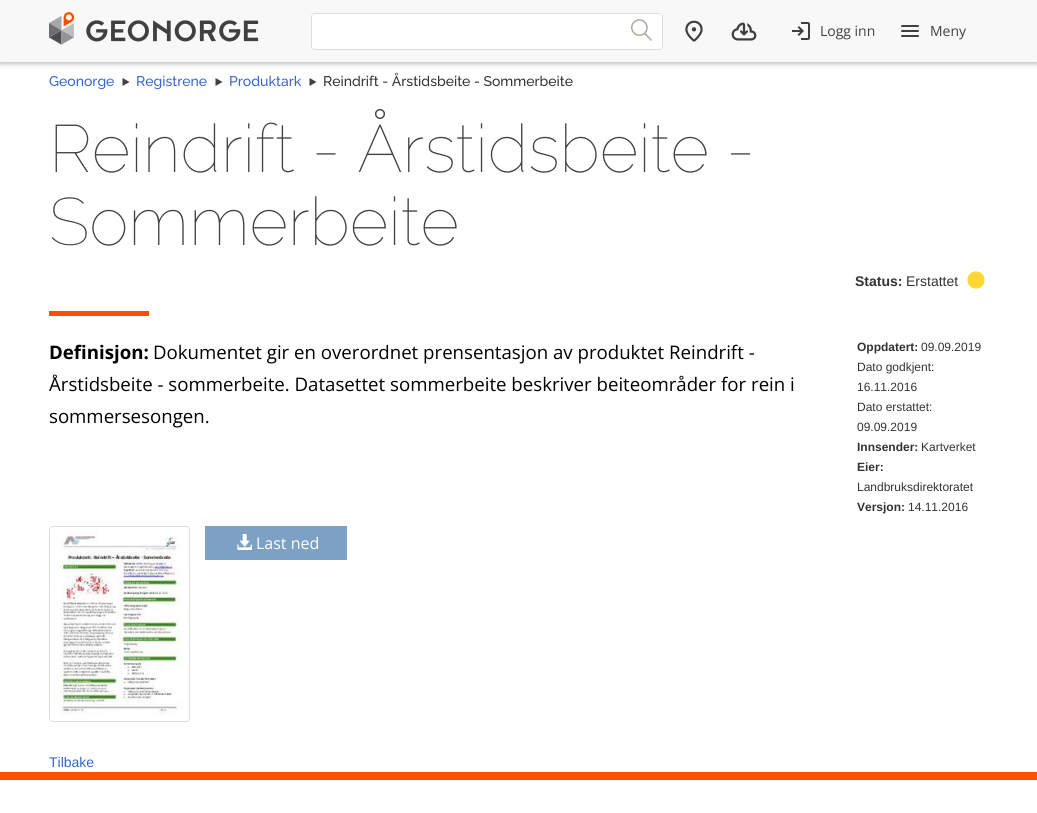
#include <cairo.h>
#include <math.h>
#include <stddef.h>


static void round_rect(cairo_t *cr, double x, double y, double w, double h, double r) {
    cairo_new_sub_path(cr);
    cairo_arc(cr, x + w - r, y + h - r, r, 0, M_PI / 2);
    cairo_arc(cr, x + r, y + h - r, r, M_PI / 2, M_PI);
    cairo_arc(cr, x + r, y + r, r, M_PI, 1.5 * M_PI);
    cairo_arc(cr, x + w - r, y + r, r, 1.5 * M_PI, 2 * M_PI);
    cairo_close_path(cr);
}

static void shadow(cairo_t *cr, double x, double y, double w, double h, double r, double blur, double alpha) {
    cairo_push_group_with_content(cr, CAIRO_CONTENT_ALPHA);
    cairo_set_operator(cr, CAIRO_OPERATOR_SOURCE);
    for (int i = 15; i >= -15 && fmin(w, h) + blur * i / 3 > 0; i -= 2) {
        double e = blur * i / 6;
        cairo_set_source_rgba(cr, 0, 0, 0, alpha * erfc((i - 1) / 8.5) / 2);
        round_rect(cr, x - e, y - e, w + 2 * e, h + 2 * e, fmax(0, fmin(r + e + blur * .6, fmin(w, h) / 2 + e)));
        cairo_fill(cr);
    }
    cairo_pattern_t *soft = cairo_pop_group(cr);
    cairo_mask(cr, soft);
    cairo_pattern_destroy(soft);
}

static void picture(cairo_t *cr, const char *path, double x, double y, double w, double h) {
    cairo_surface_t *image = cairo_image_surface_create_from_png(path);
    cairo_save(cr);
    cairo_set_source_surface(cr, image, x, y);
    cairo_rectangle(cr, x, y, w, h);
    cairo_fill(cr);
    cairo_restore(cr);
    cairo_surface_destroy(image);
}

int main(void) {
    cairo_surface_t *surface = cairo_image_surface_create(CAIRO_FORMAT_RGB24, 1037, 813);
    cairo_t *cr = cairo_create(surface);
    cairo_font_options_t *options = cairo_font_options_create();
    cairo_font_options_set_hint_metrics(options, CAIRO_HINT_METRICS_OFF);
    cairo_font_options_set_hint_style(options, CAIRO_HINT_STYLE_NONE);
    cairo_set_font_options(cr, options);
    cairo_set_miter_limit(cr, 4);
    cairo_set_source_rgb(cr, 1, 1, 1);
    cairo_paint(cr);
    cairo_set_source_rgb(cr, 0, 0, 0);
    shadow(cr, 0, 2, 1037, 62, 0, 2.5, 0.26);
    cairo_set_source_rgb(cr, 0.969, 0.969, 0.969);
    cairo_rectangle(cr, 0, 0, 1037, 62);
    cairo_fill(cr);
    picture(cr, "img1.png", 49, 12, 210, 33);
    cairo_set_source_rgb(cr, 1, 1, 1);
    cairo_new_path(cr);
    cairo_move_to(cr, 315, 13);
    cairo_line_to(cr, 621, 13);
    cairo_line_to(cr, 621, 50);
    cairo_line_to(cr, 315, 50);
    cairo_curve_to(cr, 313, 50, 311, 48, 311, 46);
    cairo_line_to(cr, 311, 17);
    cairo_curve_to(cr, 311, 15, 313, 13, 315, 13);
    cairo_close_path(cr);
    cairo_fill(cr);
    cairo_set_source_rgb(cr, 0.875, 0.863, 0.855);
    cairo_set_fill_rule(cr, CAIRO_FILL_RULE_EVEN_ODD);
    cairo_new_path(cr);
    cairo_move_to(cr, 315, 13);
    cairo_line_to(cr, 621, 13);
    cairo_line_to(cr, 621, 50);
    cairo_line_to(cr, 315, 50);
    cairo_curve_to(cr, 313, 50, 311, 48, 311, 46);
    cairo_line_to(cr, 311, 17);
    cairo_curve_to(cr, 311, 15, 313, 13, 315, 13);
    cairo_close_path(cr);
    cairo_move_to(cr, 315, 14);
    cairo_line_to(cr, 621, 14);
    cairo_line_to(cr, 621, 49);
    cairo_line_to(cr, 315, 49);
    cairo_curve_to(cr, 313, 49, 312, 48, 312, 46);
    cairo_line_to(cr, 312, 17);
    cairo_curve_to(cr, 312, 15, 313, 14, 315, 14);
    cairo_close_path(cr);
    cairo_fill(cr);
    cairo_set_source_rgb(cr, 1, 1, 1);
    cairo_new_path(cr);
    cairo_move_to(cr, 621, 13);
    cairo_line_to(cr, 659, 13);
    cairo_curve_to(cr, 661, 13, 663, 15, 663, 17);
    cairo_line_to(cr, 663, 46);
    cairo_curve_to(cr, 663, 48, 661, 50, 659, 50);
    cairo_line_to(cr, 621, 50);
    cairo_close_path(cr);
    cairo_fill(cr);
    cairo_set_source_rgb(cr, 0.875, 0.863, 0.855);
    cairo_new_path(cr);
    cairo_move_to(cr, 621, 13);
    cairo_line_to(cr, 659, 13);
    cairo_curve_to(cr, 661, 13, 663, 15, 663, 17);
    cairo_line_to(cr, 663, 46);
    cairo_curve_to(cr, 663, 48, 661, 50, 659, 50);
    cairo_line_to(cr, 621, 50);
    cairo_close_path(cr);
    cairo_move_to(cr, 621, 14);
    cairo_line_to(cr, 659, 14);
    cairo_curve_to(cr, 661, 14, 662, 15, 662, 17);
    cairo_line_to(cr, 662, 46);
    cairo_curve_to(cr, 662, 48, 661, 49, 659, 49);
    cairo_line_to(cr, 621, 49);
    cairo_close_path(cr);
    cairo_fill(cr);
    picture(cr, "img2.png", 631, 19, 21, 22);
    picture(cr, "img3.png", 685, 20, 18, 22);
    picture(cr, "img4.png", 731, 22, 26, 19);
    picture(cr, "img5.png", 792, 22, 18, 18);
    cairo_select_font_face(cr, "Open Sans", CAIRO_FONT_SLANT_NORMAL, CAIRO_FONT_WEIGHT_NORMAL);
    cairo_set_font_size(cr, 14);
    cairo_set_source_rgb(cr, 0.255, 0.251, 0.259);
    cairo_move_to(cr, 820, 36);
    cairo_show_text(cr, "Logg inn");
    picture(cr, "img6.png", 901, 25, 18, 12);
    cairo_move_to(cr, 930, 36);
    cairo_show_text(cr, "Meny");
    cairo_select_font_face(cr, "Raleway Medium", CAIRO_FONT_SLANT_NORMAL, CAIRO_FONT_WEIGHT_NORMAL);
    cairo_set_source_rgb(cr, 0.22, 0.404, 0.784);
    cairo_move_to(cr, 49, 86);
    cairo_show_text(cr, "Geonorge");
    cairo_set_source_rgb(cr, 0.255, 0.251, 0.259);
    cairo_set_fill_rule(cr, CAIRO_FILL_RULE_WINDING);
    cairo_new_path(cr);
    cairo_move_to(cr, 129.5, 82);
    cairo_line_to(cr, 122.5, 86);
    cairo_line_to(cr, 122.5, 78);
    cairo_close_path(cr);
    cairo_fill(cr);
    cairo_set_source_rgb(cr, 0.22, 0.404, 0.784);
    cairo_move_to(cr, 136, 86);
    cairo_show_text(cr, "Registrene");
    cairo_set_source_rgb(cr, 0.255, 0.251, 0.259);
    cairo_new_path(cr);
    cairo_move_to(cr, 222.5, 82);
    cairo_line_to(cr, 215.5, 86);
    cairo_line_to(cr, 215.5, 78);
    cairo_close_path(cr);
    cairo_fill(cr);
    cairo_set_source_rgb(cr, 0.22, 0.404, 0.784);
    cairo_move_to(cr, 229, 86);
    cairo_show_text(cr, "Produktark");
    cairo_set_source_rgb(cr, 0.255, 0.251, 0.259);
    cairo_new_path(cr);
    cairo_move_to(cr, 316.5, 82);
    cairo_line_to(cr, 309.5, 86);
    cairo_line_to(cr, 309.5, 78);
    cairo_close_path(cr);
    cairo_fill(cr);
    cairo_set_source_rgb(cr, 0.2, 0.2, 0.2);
    cairo_move_to(cr, 323, 86);
    cairo_show_text(cr, "Reindrift - Årstidsbeite - Sommerbeite");
    cairo_select_font_face(cr, "Raleway Thin", CAIRO_FONT_SLANT_NORMAL, CAIRO_FONT_WEIGHT_NORMAL);
    cairo_set_font_size(cr, 66.75);
    cairo_set_source_rgb(cr, 0.255, 0.251, 0.259);
    cairo_move_to(cr, 49, 172);
    cairo_show_text(cr, "Reindrift - Årstidsbeite -");
    cairo_move_to(cr, 49, 245);
    cairo_show_text(cr, "Sommerbeite");
    cairo_select_font_face(cr, "Liberation Sans", CAIRO_FONT_SLANT_NORMAL, CAIRO_FONT_WEIGHT_BOLD);
    cairo_set_font_size(cr, 14);
    cairo_set_source_rgb(cr, 0.2, 0.2, 0.2);
    cairo_move_to(cr, 855, 286);
    cairo_show_text(cr, "Status:");
    cairo_select_font_face(cr, "Liberation Sans", CAIRO_FONT_SLANT_NORMAL, CAIRO_FONT_WEIGHT_NORMAL);
    cairo_move_to(cr, 906, 286);
    cairo_show_text(cr, "Erstattet");
    cairo_set_source_rgb(cr, 0.996, 0.839, 0.2);
    cairo_new_path(cr);
    cairo_move_to(cr, 984.5, 280);
    cairo_curve_to(cr, 984.5, 291.5, 967.5, 291.5, 967.5, 280);
    cairo_curve_to(cr, 967.5, 268.5, 984.5, 268.5, 984.5, 280);
    cairo_close_path(cr);
    cairo_fill(cr);
    cairo_set_source_rgb(cr, 0.996, 0.314, 0);
    cairo_rectangle(cr, 49, 311, 100, 5);
    cairo_fill(cr);
    cairo_select_font_face(cr, "Open Sans", CAIRO_FONT_SLANT_NORMAL, CAIRO_FONT_WEIGHT_BOLD);
    cairo_set_font_size(cr, 18.65);
    cairo_set_source_rgb(cr, 0, 0, 0);
    cairo_move_to(cr, 49, 359);
    cairo_show_text(cr, "Definisjon:");
    cairo_select_font_face(cr, "Open Sans", CAIRO_FONT_SLANT_NORMAL, CAIRO_FONT_WEIGHT_NORMAL);
    cairo_move_to(cr, 153, 359);
    cairo_show_text(cr, "Dokumentet gir en overordnet prensentasjon av produktet Reindrift -");
    cairo_move_to(cr, 49, 391);
    cairo_show_text(cr, "Årstidsbeite - sommerbeite. Datasettet sommerbeite beskriver beiteområder for rein i");
    cairo_move_to(cr, 49, 423);
    cairo_show_text(cr, "sommersesongen.");
    cairo_select_font_face(cr, "Liberation Sans", CAIRO_FONT_SLANT_NORMAL, CAIRO_FONT_WEIGHT_BOLD);
    cairo_set_font_size(cr, 12);
    cairo_set_source_rgb(cr, 0.2, 0.2, 0.2);
    cairo_move_to(cr, 857, 351);
    cairo_show_text(cr, "Oppdatert:");
    cairo_select_font_face(cr, "Liberation Sans", CAIRO_FONT_SLANT_NORMAL, CAIRO_FONT_WEIGHT_NORMAL);
    cairo_move_to(cr, 921, 351);
    cairo_show_text(cr, "09.09.2019");
    cairo_move_to(cr, 857, 371);
    cairo_show_text(cr, "Dato godkjent:");
    cairo_move_to(cr, 857, 391);
    cairo_show_text(cr, "16.11.2016");
    cairo_move_to(cr, 857, 411);
    cairo_show_text(cr, "Dato erstattet:");
    cairo_move_to(cr, 857, 431);
    cairo_show_text(cr, "09.09.2019");
    cairo_select_font_face(cr, "Liberation Sans", CAIRO_FONT_SLANT_NORMAL, CAIRO_FONT_WEIGHT_BOLD);
    cairo_move_to(cr, 857, 451);
    cairo_show_text(cr, "Innsender:");
    cairo_select_font_face(cr, "Liberation Sans", CAIRO_FONT_SLANT_NORMAL, CAIRO_FONT_WEIGHT_NORMAL);
    cairo_move_to(cr, 921, 451);
    cairo_show_text(cr, "Kartverket");
    cairo_select_font_face(cr, "Liberation Sans", CAIRO_FONT_SLANT_NORMAL, CAIRO_FONT_WEIGHT_BOLD);
    cairo_move_to(cr, 857, 471);
    cairo_show_text(cr, "Eier:");
    cairo_select_font_face(cr, "Liberation Sans", CAIRO_FONT_SLANT_NORMAL, CAIRO_FONT_WEIGHT_NORMAL);
    cairo_move_to(cr, 857, 491);
    cairo_show_text(cr, "Landbruksdirektoratet");
    cairo_select_font_face(cr, "Liberation Sans", CAIRO_FONT_SLANT_NORMAL, CAIRO_FONT_WEIGHT_BOLD);
    cairo_move_to(cr, 857, 511);
    cairo_show_text(cr, "Versjon:");
    cairo_select_font_face(cr, "Liberation Sans", CAIRO_FONT_SLANT_NORMAL, CAIRO_FONT_WEIGHT_NORMAL);
    cairo_move_to(cr, 908, 511);
    cairo_show_text(cr, "14.11.2016");
    round_rect(cr, 49.5, 526.5, 140, 195, 3.5);
    cairo_set_source_rgb(cr, 0.867, 0.867, 0.867);
    cairo_set_line_width(cr, 1);
    cairo_stroke(cr);
    picture(cr, "img7.png", 54, 531, 131, 184);
    cairo_set_source_rgb(cr, 0.49, 0.631, 0.769);
    cairo_rectangle(cr, 205, 526, 142, 34);
    cairo_fill(cr);
    picture(cr, "img8.png", 237, 534, 15, 16);
    cairo_select_font_face(cr, "Open Sans", CAIRO_FONT_SLANT_NORMAL, CAIRO_FONT_WEIGHT_NORMAL);
    cairo_set_font_size(cr, 16);
    cairo_set_source_rgb(cr, 1, 1, 1);
    cairo_move_to(cr, 256, 549);
    cairo_show_text(cr, "Last ned");
    cairo_select_font_face(cr, "Liberation Sans", CAIRO_FONT_SLANT_NORMAL, CAIRO_FONT_WEIGHT_NORMAL);
    cairo_set_font_size(cr, 14);
    cairo_set_source_rgb(cr, 0.22, 0.404, 0.784);
    cairo_move_to(cr, 49, 767);
    cairo_show_text(cr, "Tilbake");
    cairo_set_source_rgb(cr, 0.996, 0.314, 0);
    cairo_rectangle(cr, 0, 772, 1037, 8);
    cairo_fill(cr);
    cairo_surface_write_to_png(surface, "page.png");
    cairo_font_options_destroy(options);
    cairo_destroy(cr);
    cairo_surface_destroy(surface);
    return 0;
}
